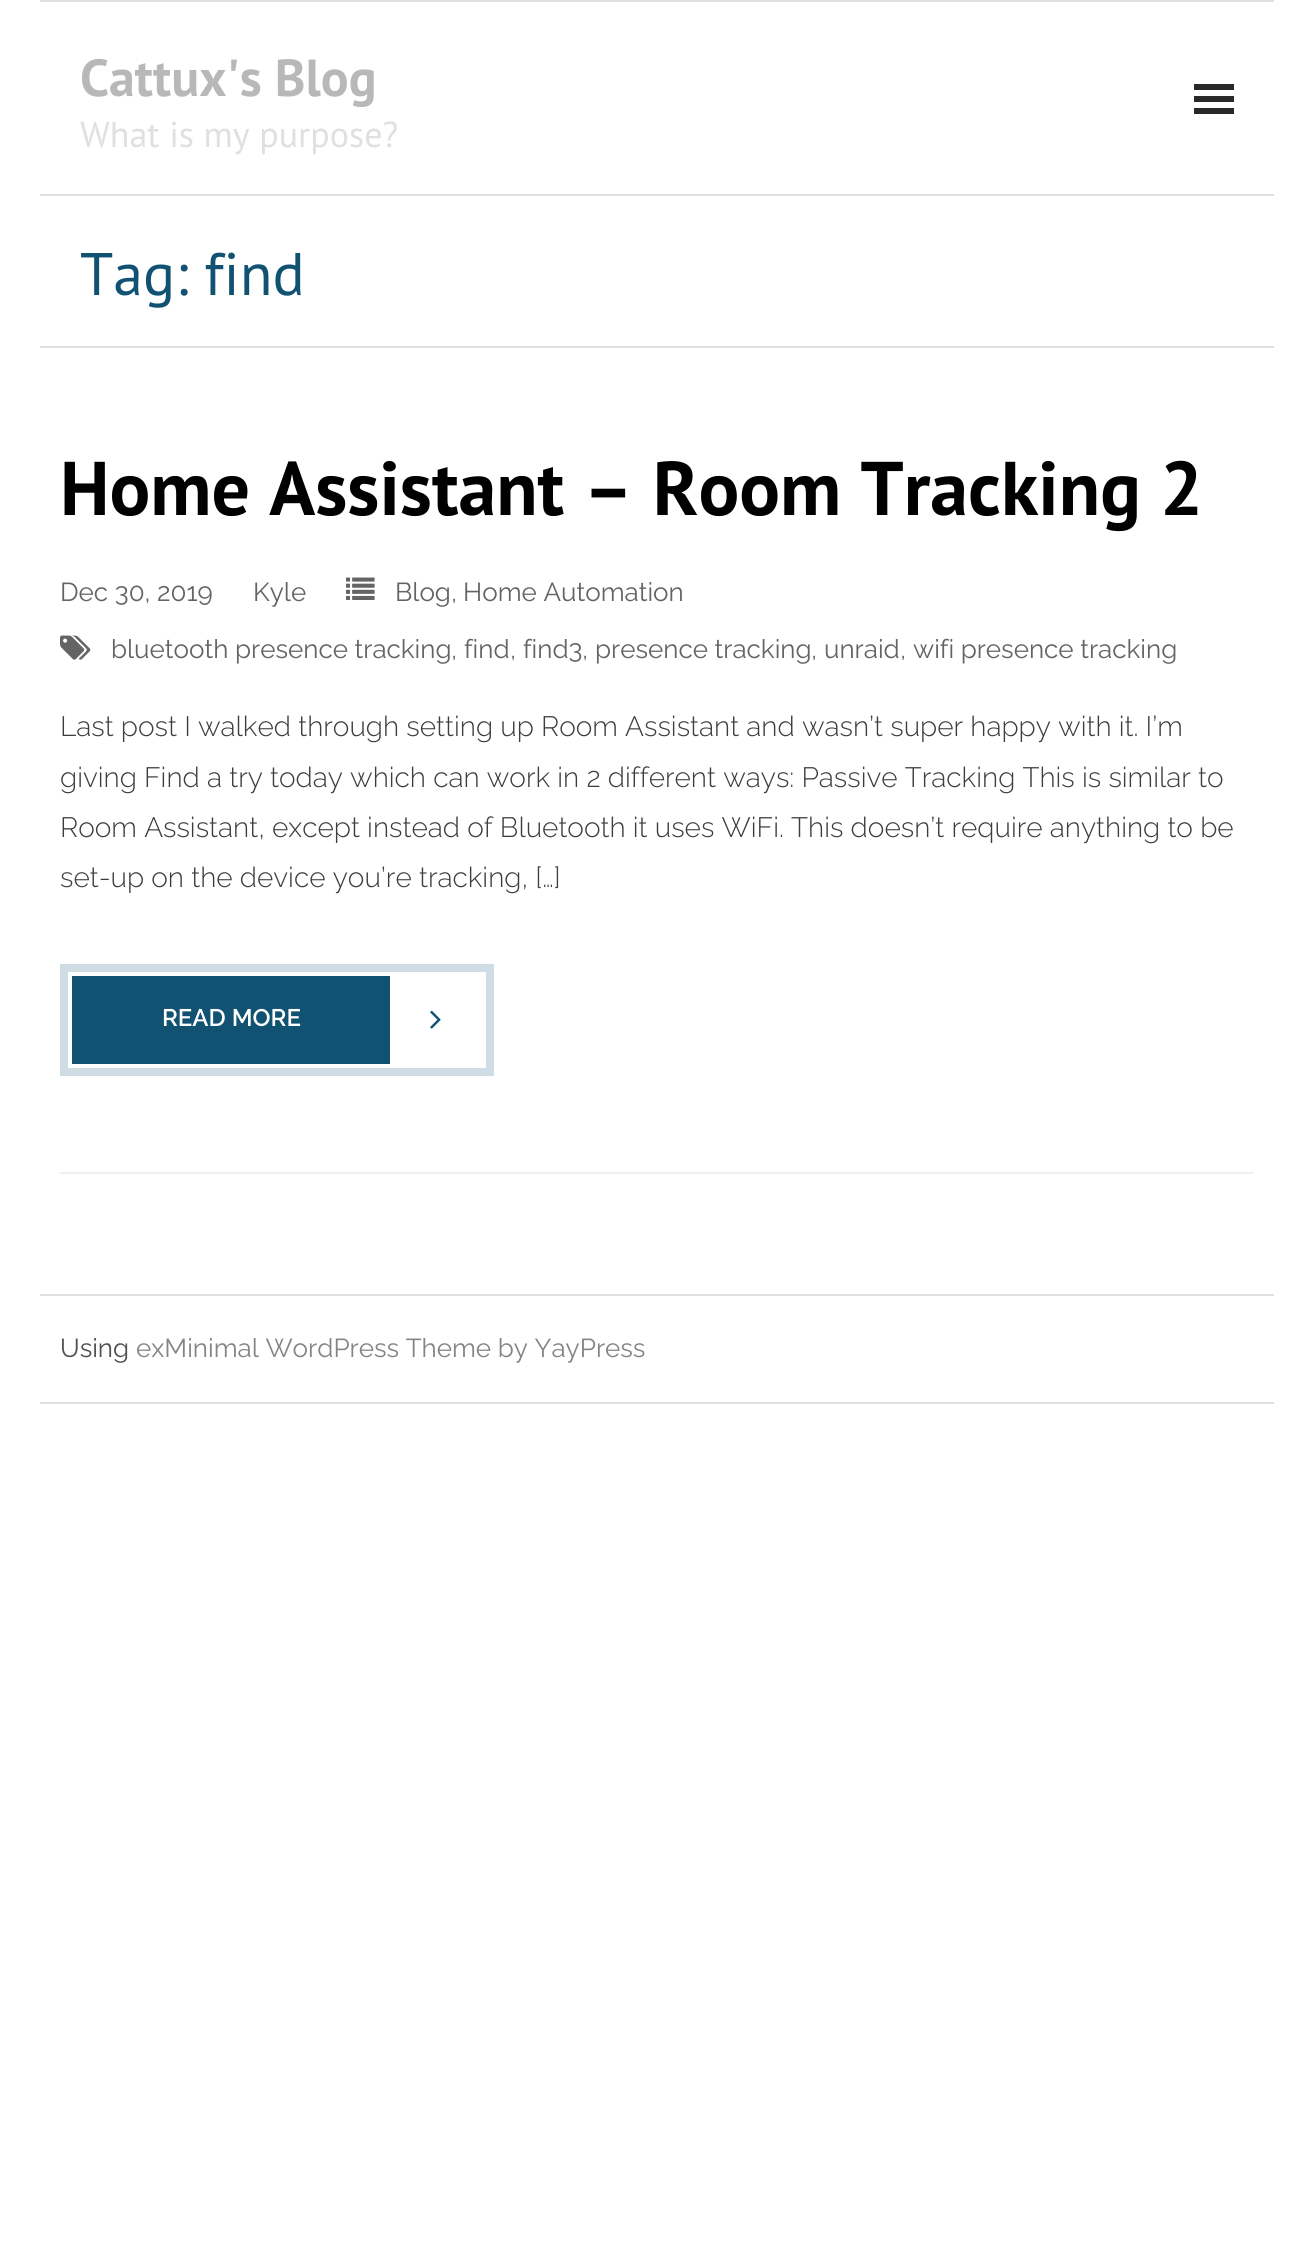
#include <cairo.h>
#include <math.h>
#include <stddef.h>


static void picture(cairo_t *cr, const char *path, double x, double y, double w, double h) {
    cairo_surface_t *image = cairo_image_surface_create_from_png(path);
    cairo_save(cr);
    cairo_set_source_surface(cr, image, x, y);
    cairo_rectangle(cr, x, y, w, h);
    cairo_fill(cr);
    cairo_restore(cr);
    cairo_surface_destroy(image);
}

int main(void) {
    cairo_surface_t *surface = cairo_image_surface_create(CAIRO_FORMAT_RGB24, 1313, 2264);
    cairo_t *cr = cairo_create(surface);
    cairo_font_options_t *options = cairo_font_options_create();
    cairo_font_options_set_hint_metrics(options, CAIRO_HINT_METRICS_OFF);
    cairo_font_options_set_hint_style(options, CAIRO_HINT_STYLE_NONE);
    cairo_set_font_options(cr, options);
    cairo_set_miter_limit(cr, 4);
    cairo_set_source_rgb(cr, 1, 1, 1);
    cairo_paint(cr);
    cairo_set_source_rgb(cr, 0.882, 0.882, 0.882);
    cairo_rectangle(cr, 40, 0, 1234, 2);
    cairo_fill(cr);
    cairo_rectangle(cr, 40, 194, 1234, 2);
    cairo_fill(cr);
    cairo_select_font_face(cr, "PT Sans", CAIRO_FONT_SLANT_NORMAL, CAIRO_FONT_WEIGHT_BOLD);
    cairo_set_font_size(cr, 52);
    cairo_set_source_rgb(cr, 0.722, 0.722, 0.722);
    cairo_move_to(cr, 80, 96);
    cairo_show_text(cr, "Cattux's Blog");
    cairo_select_font_face(cr, "PT Sans", CAIRO_FONT_SLANT_NORMAL, CAIRO_FONT_WEIGHT_NORMAL);
    cairo_set_font_size(cr, 36);
    cairo_set_source_rgb(cr, 0.878, 0.878, 0.878);
    cairo_move_to(cr, 80, 147);
    cairo_show_text(cr, "What is my purpose?");
    cairo_set_source_rgb(cr, 0.161, 0.161, 0.161);
    cairo_rectangle(cr, 1194, 84, 40, 6);
    cairo_fill(cr);
    cairo_rectangle(cr, 1194, 96, 40, 6);
    cairo_fill(cr);
    cairo_rectangle(cr, 1194, 108, 40, 6);
    cairo_fill(cr);
    cairo_set_source_rgb(cr, 0.882, 0.882, 0.882);
    cairo_rectangle(cr, 40, 346, 1234, 2);
    cairo_fill(cr);
    cairo_set_font_size(cr, 60);
    cairo_set_source_rgb(cr, 0.067, 0.318, 0.447);
    cairo_move_to(cr, 80, 295);
    cairo_show_text(cr, "Tag: find");
    cairo_set_source_rgb(cr, 0.945, 0.945, 0.945);
    cairo_rectangle(cr, 60, 1172, 1194, 2);
    cairo_fill(cr);
    cairo_select_font_face(cr, "PT Sans", CAIRO_FONT_SLANT_NORMAL, CAIRO_FONT_WEIGHT_BOLD);
    cairo_set_font_size(cr, 76);
    cairo_set_source_rgb(cr, 0, 0, 0);
    cairo_move_to(cr, 60, 515);
    cairo_show_text(cr, "Home Assistant – Room Tracking 2");
    cairo_select_font_face(cr, "Raleway", CAIRO_FONT_SLANT_NORMAL, CAIRO_FONT_WEIGHT_NORMAL);
    cairo_set_font_size(cr, 26);
    cairo_set_source_rgb(cr, 0.392, 0.392, 0.392);
    cairo_move_to(cr, 60, 601);
    cairo_show_text(cr, "Dec 30, 2019");
    cairo_move_to(cr, 253, 601);
    cairo_show_text(cr, "Kyle");
    picture(cr, "img1.png", 346, 577, 29, 23);
    cairo_move_to(cr, 395, 601);
    cairo_show_text(cr, "Blog");
    cairo_select_font_face(cr, "Raleway Light", CAIRO_FONT_SLANT_NORMAL, CAIRO_FONT_WEIGHT_NORMAL);
    cairo_set_source_rgb(cr, 0.239, 0.239, 0.239);
    cairo_move_to(cr, 451, 601);
    cairo_show_text(cr, ",");
    cairo_select_font_face(cr, "Raleway", CAIRO_FONT_SLANT_NORMAL, CAIRO_FONT_WEIGHT_NORMAL);
    cairo_set_source_rgb(cr, 0.392, 0.392, 0.392);
    cairo_move_to(cr, 463, 601);
    cairo_show_text(cr, "Home Automation");
    picture(cr, "img2.png", 60, 635, 31, 25);
    cairo_move_to(cr, 111, 658);
    cairo_show_text(cr, "bluetooth presence tracking");
    cairo_select_font_face(cr, "Raleway Light", CAIRO_FONT_SLANT_NORMAL, CAIRO_FONT_WEIGHT_NORMAL);
    cairo_set_source_rgb(cr, 0.239, 0.239, 0.239);
    cairo_move_to(cr, 451, 658);
    cairo_show_text(cr, ",");
    cairo_select_font_face(cr, "Raleway", CAIRO_FONT_SLANT_NORMAL, CAIRO_FONT_WEIGHT_NORMAL);
    cairo_set_source_rgb(cr, 0.392, 0.392, 0.392);
    cairo_move_to(cr, 464, 658);
    cairo_show_text(cr, "find");
    cairo_select_font_face(cr, "Raleway Light", CAIRO_FONT_SLANT_NORMAL, CAIRO_FONT_WEIGHT_NORMAL);
    cairo_set_source_rgb(cr, 0.239, 0.239, 0.239);
    cairo_move_to(cr, 510, 658);
    cairo_show_text(cr, ",");
    cairo_select_font_face(cr, "Raleway", CAIRO_FONT_SLANT_NORMAL, CAIRO_FONT_WEIGHT_NORMAL);
    cairo_set_source_rgb(cr, 0.392, 0.392, 0.392);
    cairo_move_to(cr, 523, 658);
    cairo_show_text(cr, "find3");
    cairo_select_font_face(cr, "Raleway Light", CAIRO_FONT_SLANT_NORMAL, CAIRO_FONT_WEIGHT_NORMAL);
    cairo_set_source_rgb(cr, 0.239, 0.239, 0.239);
    cairo_move_to(cr, 582, 658);
    cairo_show_text(cr, ",");
    cairo_select_font_face(cr, "Raleway", CAIRO_FONT_SLANT_NORMAL, CAIRO_FONT_WEIGHT_NORMAL);
    cairo_set_source_rgb(cr, 0.392, 0.392, 0.392);
    cairo_move_to(cr, 595, 658);
    cairo_show_text(cr, "presence tracking");
    cairo_select_font_face(cr, "Raleway Light", CAIRO_FONT_SLANT_NORMAL, CAIRO_FONT_WEIGHT_NORMAL);
    cairo_set_source_rgb(cr, 0.239, 0.239, 0.239);
    cairo_move_to(cr, 811, 658);
    cairo_show_text(cr, ",");
    cairo_select_font_face(cr, "Raleway", CAIRO_FONT_SLANT_NORMAL, CAIRO_FONT_WEIGHT_NORMAL);
    cairo_set_source_rgb(cr, 0.392, 0.392, 0.392);
    cairo_move_to(cr, 824, 658);
    cairo_show_text(cr, "unraid");
    cairo_select_font_face(cr, "Raleway Light", CAIRO_FONT_SLANT_NORMAL, CAIRO_FONT_WEIGHT_NORMAL);
    cairo_set_source_rgb(cr, 0.239, 0.239, 0.239);
    cairo_move_to(cr, 900, 658);
    cairo_show_text(cr, ",");
    cairo_select_font_face(cr, "Raleway", CAIRO_FONT_SLANT_NORMAL, CAIRO_FONT_WEIGHT_NORMAL);
    cairo_set_source_rgb(cr, 0.392, 0.392, 0.392);
    cairo_move_to(cr, 913, 658);
    cairo_show_text(cr, "wifi presence tracking");
    cairo_select_font_face(cr, "Raleway Light", CAIRO_FONT_SLANT_NORMAL, CAIRO_FONT_WEIGHT_NORMAL);
    cairo_set_font_size(cr, 28);
    cairo_set_source_rgb(cr, 0.239, 0.239, 0.239);
    cairo_move_to(cr, 60, 736);
    cairo_show_text(cr, "Last post I walked through setting up Room Assistant and wasn’t super happy with it. I’m");
    cairo_move_to(cr, 60, 787);
    cairo_show_text(cr, "giving Find a try today which can work in 2 different ways: Passive Tracking This is similar to");
    cairo_move_to(cr, 60, 837);
    cairo_show_text(cr, "Room Assistant, except instead of Bluetooth it uses WiFi. This doesn’t require anything to be");
    cairo_move_to(cr, 60, 887);
    cairo_show_text(cr, "set-up on the device you’re tracking, […]");
    cairo_rectangle(cr, 64, 968, 426, 104);
    cairo_set_source_rgb(cr, 0.812, 0.863, 0.89);
    cairo_set_line_width(cr, 8);
    cairo_stroke(cr);
    cairo_set_source_rgb(cr, 0.067, 0.318, 0.447);
    cairo_rectangle(cr, 72, 976, 318, 88);
    cairo_fill(cr);
    cairo_select_font_face(cr, "Raleway SemiBold", CAIRO_FONT_SLANT_NORMAL, CAIRO_FONT_WEIGHT_NORMAL);
    cairo_set_font_size(cr, 24);
    cairo_set_source_rgb(cr, 1, 1, 1);
    cairo_move_to(cr, 162, 1026);
    cairo_show_text(cr, "READ MORE");
    picture(cr, "img3.png", 430, 1010, 11, 19);
    cairo_set_source_rgb(cr, 0.882, 0.882, 0.882);
    cairo_rectangle(cr, 40, 1294, 1234, 2);
    cairo_fill(cr);
    cairo_rectangle(cr, 40, 1402, 1234, 2);
    cairo_fill(cr);
    cairo_select_font_face(cr, "Raleway", CAIRO_FONT_SLANT_NORMAL, CAIRO_FONT_WEIGHT_NORMAL);
    cairo_set_font_size(cr, 26);
    cairo_set_source_rgb(cr, 0.314, 0.314, 0.314);
    cairo_move_to(cr, 60, 1357);
    cairo_show_text(cr, "Using");
    cairo_set_source_rgb(cr, 0.518, 0.518, 0.518);
    cairo_move_to(cr, 136, 1357);
    cairo_show_text(cr, "exMinimal WordPress Theme by YayPress");
    cairo_surface_write_to_png(surface, "page.png");
    cairo_font_options_destroy(options);
    cairo_destroy(cr);
    cairo_surface_destroy(surface);
    return 0;
}
